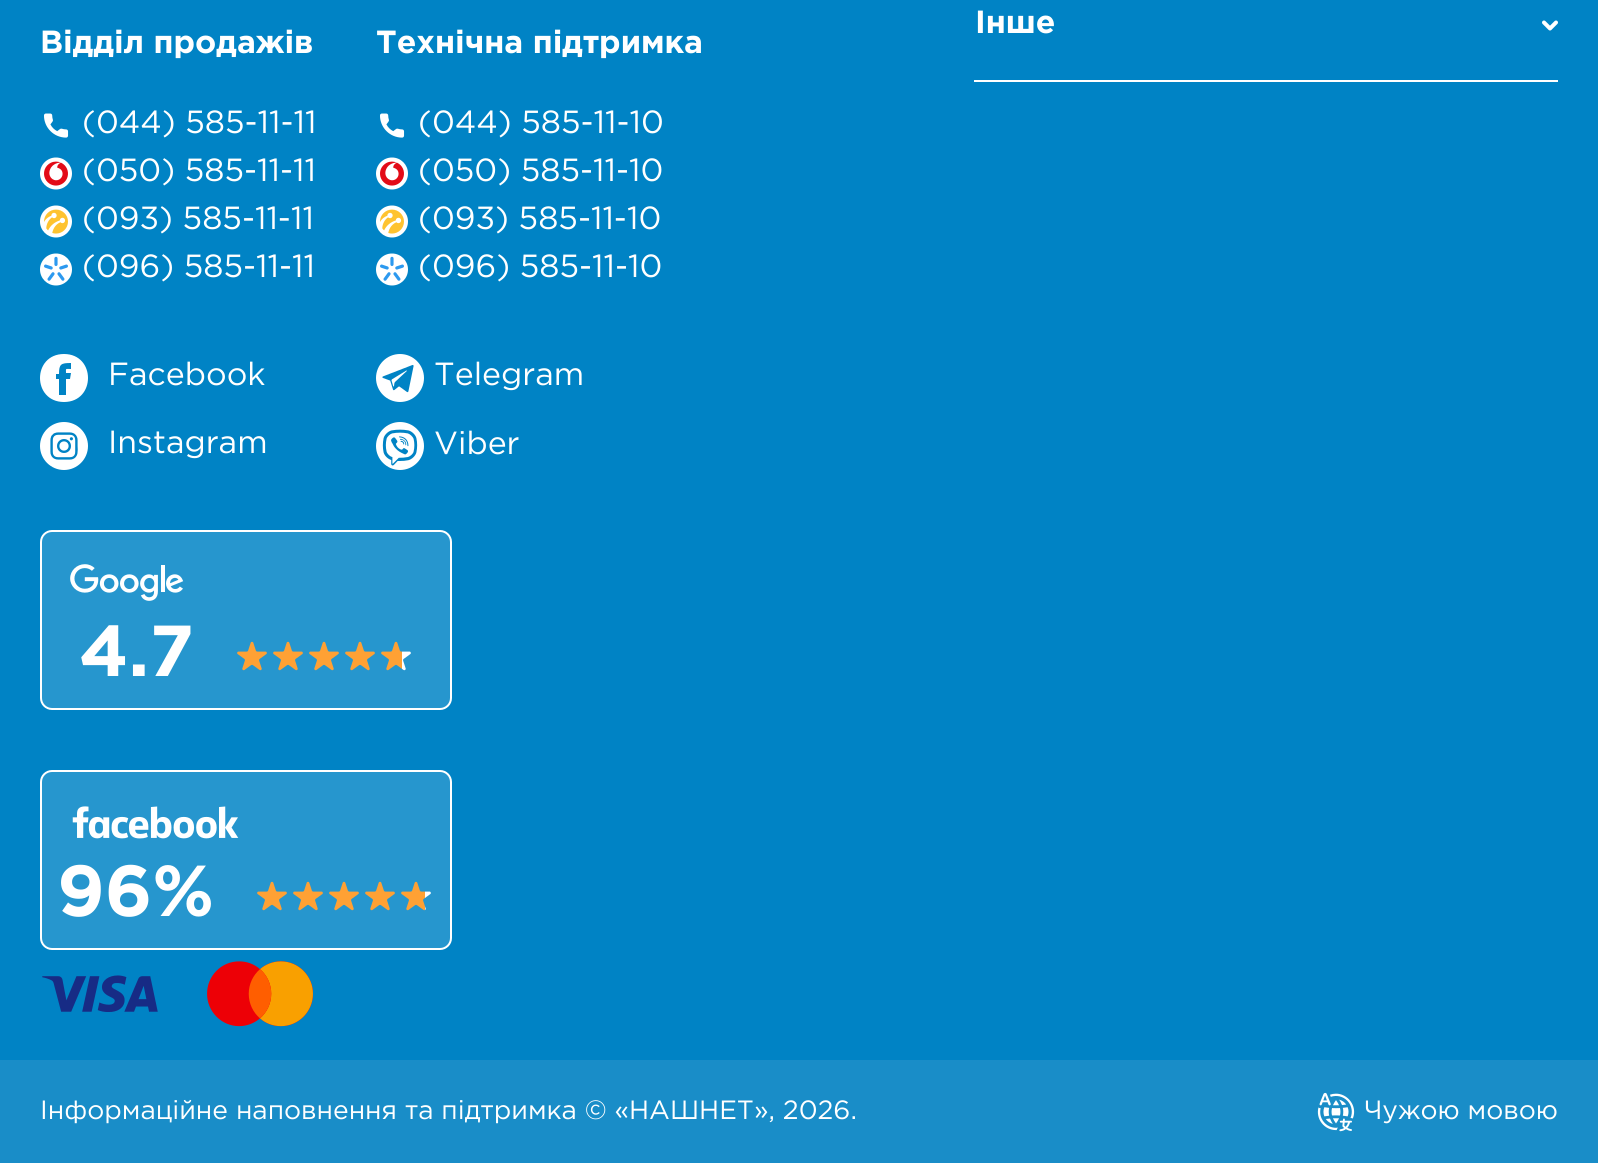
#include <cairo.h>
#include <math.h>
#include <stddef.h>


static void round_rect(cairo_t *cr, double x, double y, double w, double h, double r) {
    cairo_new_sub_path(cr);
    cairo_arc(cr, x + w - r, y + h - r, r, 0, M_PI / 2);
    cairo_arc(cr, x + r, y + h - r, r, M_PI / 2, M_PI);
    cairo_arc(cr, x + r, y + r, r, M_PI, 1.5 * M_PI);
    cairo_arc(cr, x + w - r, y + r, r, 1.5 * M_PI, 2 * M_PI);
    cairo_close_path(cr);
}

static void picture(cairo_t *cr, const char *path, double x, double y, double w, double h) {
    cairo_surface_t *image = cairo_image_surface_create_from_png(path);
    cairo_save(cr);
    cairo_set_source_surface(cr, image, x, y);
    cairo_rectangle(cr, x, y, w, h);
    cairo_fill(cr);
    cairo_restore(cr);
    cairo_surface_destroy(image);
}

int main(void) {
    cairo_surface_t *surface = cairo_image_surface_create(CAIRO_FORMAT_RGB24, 1598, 1163);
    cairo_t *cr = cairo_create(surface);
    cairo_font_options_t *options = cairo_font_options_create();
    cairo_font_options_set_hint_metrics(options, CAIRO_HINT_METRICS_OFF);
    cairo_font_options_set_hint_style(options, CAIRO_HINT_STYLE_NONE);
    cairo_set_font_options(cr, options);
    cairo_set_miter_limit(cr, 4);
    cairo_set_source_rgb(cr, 0, 0.514, 0.773);
    cairo_paint(cr);
    cairo_set_source_rgb(cr, 1, 1, 1);
    cairo_rectangle(cr, 974, 80, 584, 2);
    cairo_fill(cr);
    cairo_select_font_face(cr, "Gotham", CAIRO_FONT_SLANT_NORMAL, CAIRO_FONT_WEIGHT_BOLD);
    cairo_set_font_size(cr, 32);
    cairo_move_to(cr, 975, 33);
    cairo_show_text(cr, "Інше");
    cairo_new_path(cr);
    cairo_move_to(cr, 1544, 22.5);
    cairo_line_to(cr, 1550, 28.5);
    cairo_line_to(cr, 1556, 22.5);
    cairo_set_line_width(cr, 4);
    cairo_set_line_cap(cr, CAIRO_LINE_CAP_ROUND);
    cairo_set_line_join(cr, CAIRO_LINE_JOIN_ROUND);
    cairo_stroke(cr);
    cairo_move_to(cr, 40, 53);
    cairo_show_text(cr, "Відділ продажів");
    picture(cr, "img1.png", 44, 113, 25, 25);
    cairo_select_font_face(cr, "Gotham", CAIRO_FONT_SLANT_NORMAL, CAIRO_FONT_WEIGHT_NORMAL);
    cairo_move_to(cr, 82, 133);
    cairo_show_text(cr, "(044) 585-11-11");
    picture(cr, "img2.png", 40, 157, 32, 33);
    cairo_move_to(cr, 82, 181);
    cairo_show_text(cr, "(050) 585-11-11");
    picture(cr, "img3.png", 40, 205, 32, 33);
    cairo_move_to(cr, 82, 229);
    cairo_show_text(cr, "(093) 585-11-11");
    picture(cr, "img4.png", 40, 253, 32, 33);
    cairo_move_to(cr, 82, 277);
    cairo_show_text(cr, "(096) 585-11-11");
    cairo_set_fill_rule(cr, CAIRO_FILL_RULE_EVEN_ODD);
    cairo_new_path(cr);
    cairo_move_to(cr, 64, 402);
    cairo_curve_to(cr, 96, 402, 96, 354, 64, 354);
    cairo_curve_to(cr, 32, 354, 32, 402, 64, 402);
    cairo_close_path(cr);
    cairo_move_to(cr, 66, 379);
    cairo_line_to(cr, 70, 379);
    cairo_line_to(cr, 71, 373);
    cairo_line_to(cr, 66, 373);
    cairo_curve_to(cr, 66, 368, 65, 369, 71, 369);
    cairo_line_to(cr, 71, 363);
    cairo_curve_to(cr, 61, 363, 59, 364, 59, 374);
    cairo_line_to(cr, 56, 374);
    cairo_line_to(cr, 56, 379);
    cairo_line_to(cr, 59, 379);
    cairo_line_to(cr, 59, 395);
    cairo_line_to(cr, 66, 395);
    cairo_close_path(cr);
    cairo_fill(cr);
    cairo_move_to(cr, 108, 385);
    cairo_show_text(cr, "Facebook");
    picture(cr, "img5.png", 40, 422, 48, 48);
    cairo_move_to(cr, 108, 453);
    cairo_show_text(cr, "Instagram");
    cairo_select_font_face(cr, "Gotham", CAIRO_FONT_SLANT_NORMAL, CAIRO_FONT_WEIGHT_BOLD);
    cairo_move_to(cr, 376, 53);
    cairo_show_text(cr, "Технічна підтримка");
    picture(cr, "img1.png", 380, 113, 25, 25);
    cairo_select_font_face(cr, "Gotham", CAIRO_FONT_SLANT_NORMAL, CAIRO_FONT_WEIGHT_NORMAL);
    cairo_move_to(cr, 418, 133);
    cairo_show_text(cr, "(044) 585-11-10");
    picture(cr, "img2.png", 376, 157, 32, 33);
    cairo_move_to(cr, 418, 181);
    cairo_show_text(cr, "(050) 585-11-10");
    picture(cr, "img3.png", 376, 205, 32, 33);
    cairo_move_to(cr, 418, 229);
    cairo_show_text(cr, "(093) 585-11-10");
    picture(cr, "img4.png", 376, 253, 32, 33);
    cairo_move_to(cr, 418, 277);
    cairo_show_text(cr, "(096) 585-11-10");
    picture(cr, "img6.png", 376, 354, 48, 48);
    cairo_move_to(cr, 434, 385);
    cairo_show_text(cr, "Telegram");
    picture(cr, "img7.png", 376, 422, 48, 48);
    cairo_move_to(cr, 434, 454);
    cairo_show_text(cr, "Viber");
    cairo_set_source_rgb(cr, 0.149, 0.588, 0.808);
    round_rect(cr, 41, 531, 410, 178, 11);
    cairo_fill_preserve(cr);
    cairo_set_source_rgb(cr, 1, 1, 1);
    cairo_set_line_width(cr, 2);
    cairo_set_line_cap(cr, CAIRO_LINE_CAP_BUTT);
    cairo_set_line_join(cr, CAIRO_LINE_JOIN_MITER);
    cairo_stroke(cr);
    picture(cr, "img8.png", 70, 564, 114, 37);
    cairo_select_font_face(cr, "Gotham", CAIRO_FONT_SLANT_NORMAL, CAIRO_FONT_WEIGHT_BOLD);
    cairo_set_font_size(cr, 72);
    cairo_move_to(cr, 79, 676);
    cairo_show_text(cr, "4.7");
    picture(cr, "img9.png", 237, 641, 30, 30);
    picture(cr, "img9.png", 273, 641, 30, 30);
    picture(cr, "img9.png", 309, 641, 30, 30);
    picture(cr, "img9.png", 345, 641, 30, 30);
    picture(cr, "img10.png", 381, 641, 30, 30);
    cairo_set_source_rgb(cr, 0.149, 0.588, 0.808);
    round_rect(cr, 41, 771, 410, 178, 11);
    cairo_fill_preserve(cr);
    cairo_set_source_rgb(cr, 1, 1, 1);
    cairo_stroke(cr);
    picture(cr, "img11.png", 72, 806, 167, 33);
    cairo_move_to(cr, 57, 916);
    cairo_show_text(cr, "96%");
    picture(cr, "img9.png", 257, 881, 30, 30);
    picture(cr, "img9.png", 293, 881, 30, 30);
    picture(cr, "img9.png", 329, 881, 30, 30);
    picture(cr, "img9.png", 365, 881, 30, 30);
    picture(cr, "img12.png", 401, 881, 30, 30);
    picture(cr, "img13.png", 42, 975, 116, 37);
    picture(cr, "img14.png", 207, 961, 106, 66);
    cairo_set_source_rgb(cr, 0.098, 0.553, 0.784);
    cairo_rectangle(cr, 0, 1060, 1598, 103);
    cairo_fill(cr);
    cairo_select_font_face(cr, "Gotham", CAIRO_FONT_SLANT_NORMAL, CAIRO_FONT_WEIGHT_NORMAL);
    cairo_set_font_size(cr, 26.4);
    cairo_set_source_rgb(cr, 1, 1, 1);
    cairo_move_to(cr, 40, 1119);
    cairo_show_text(cr, "Інформаційне наповнення та підтримка © «НАШНЕТ», 2026.");
    picture(cr, "img15.png", 1317, 1092, 38, 40);
    cairo_move_to(cr, 1364, 1119);
    cairo_show_text(cr, "Чужою мовою");
    cairo_surface_write_to_png(surface, "page.png");
    cairo_font_options_destroy(options);
    cairo_destroy(cr);
    cairo_surface_destroy(surface);
    return 0;
}
